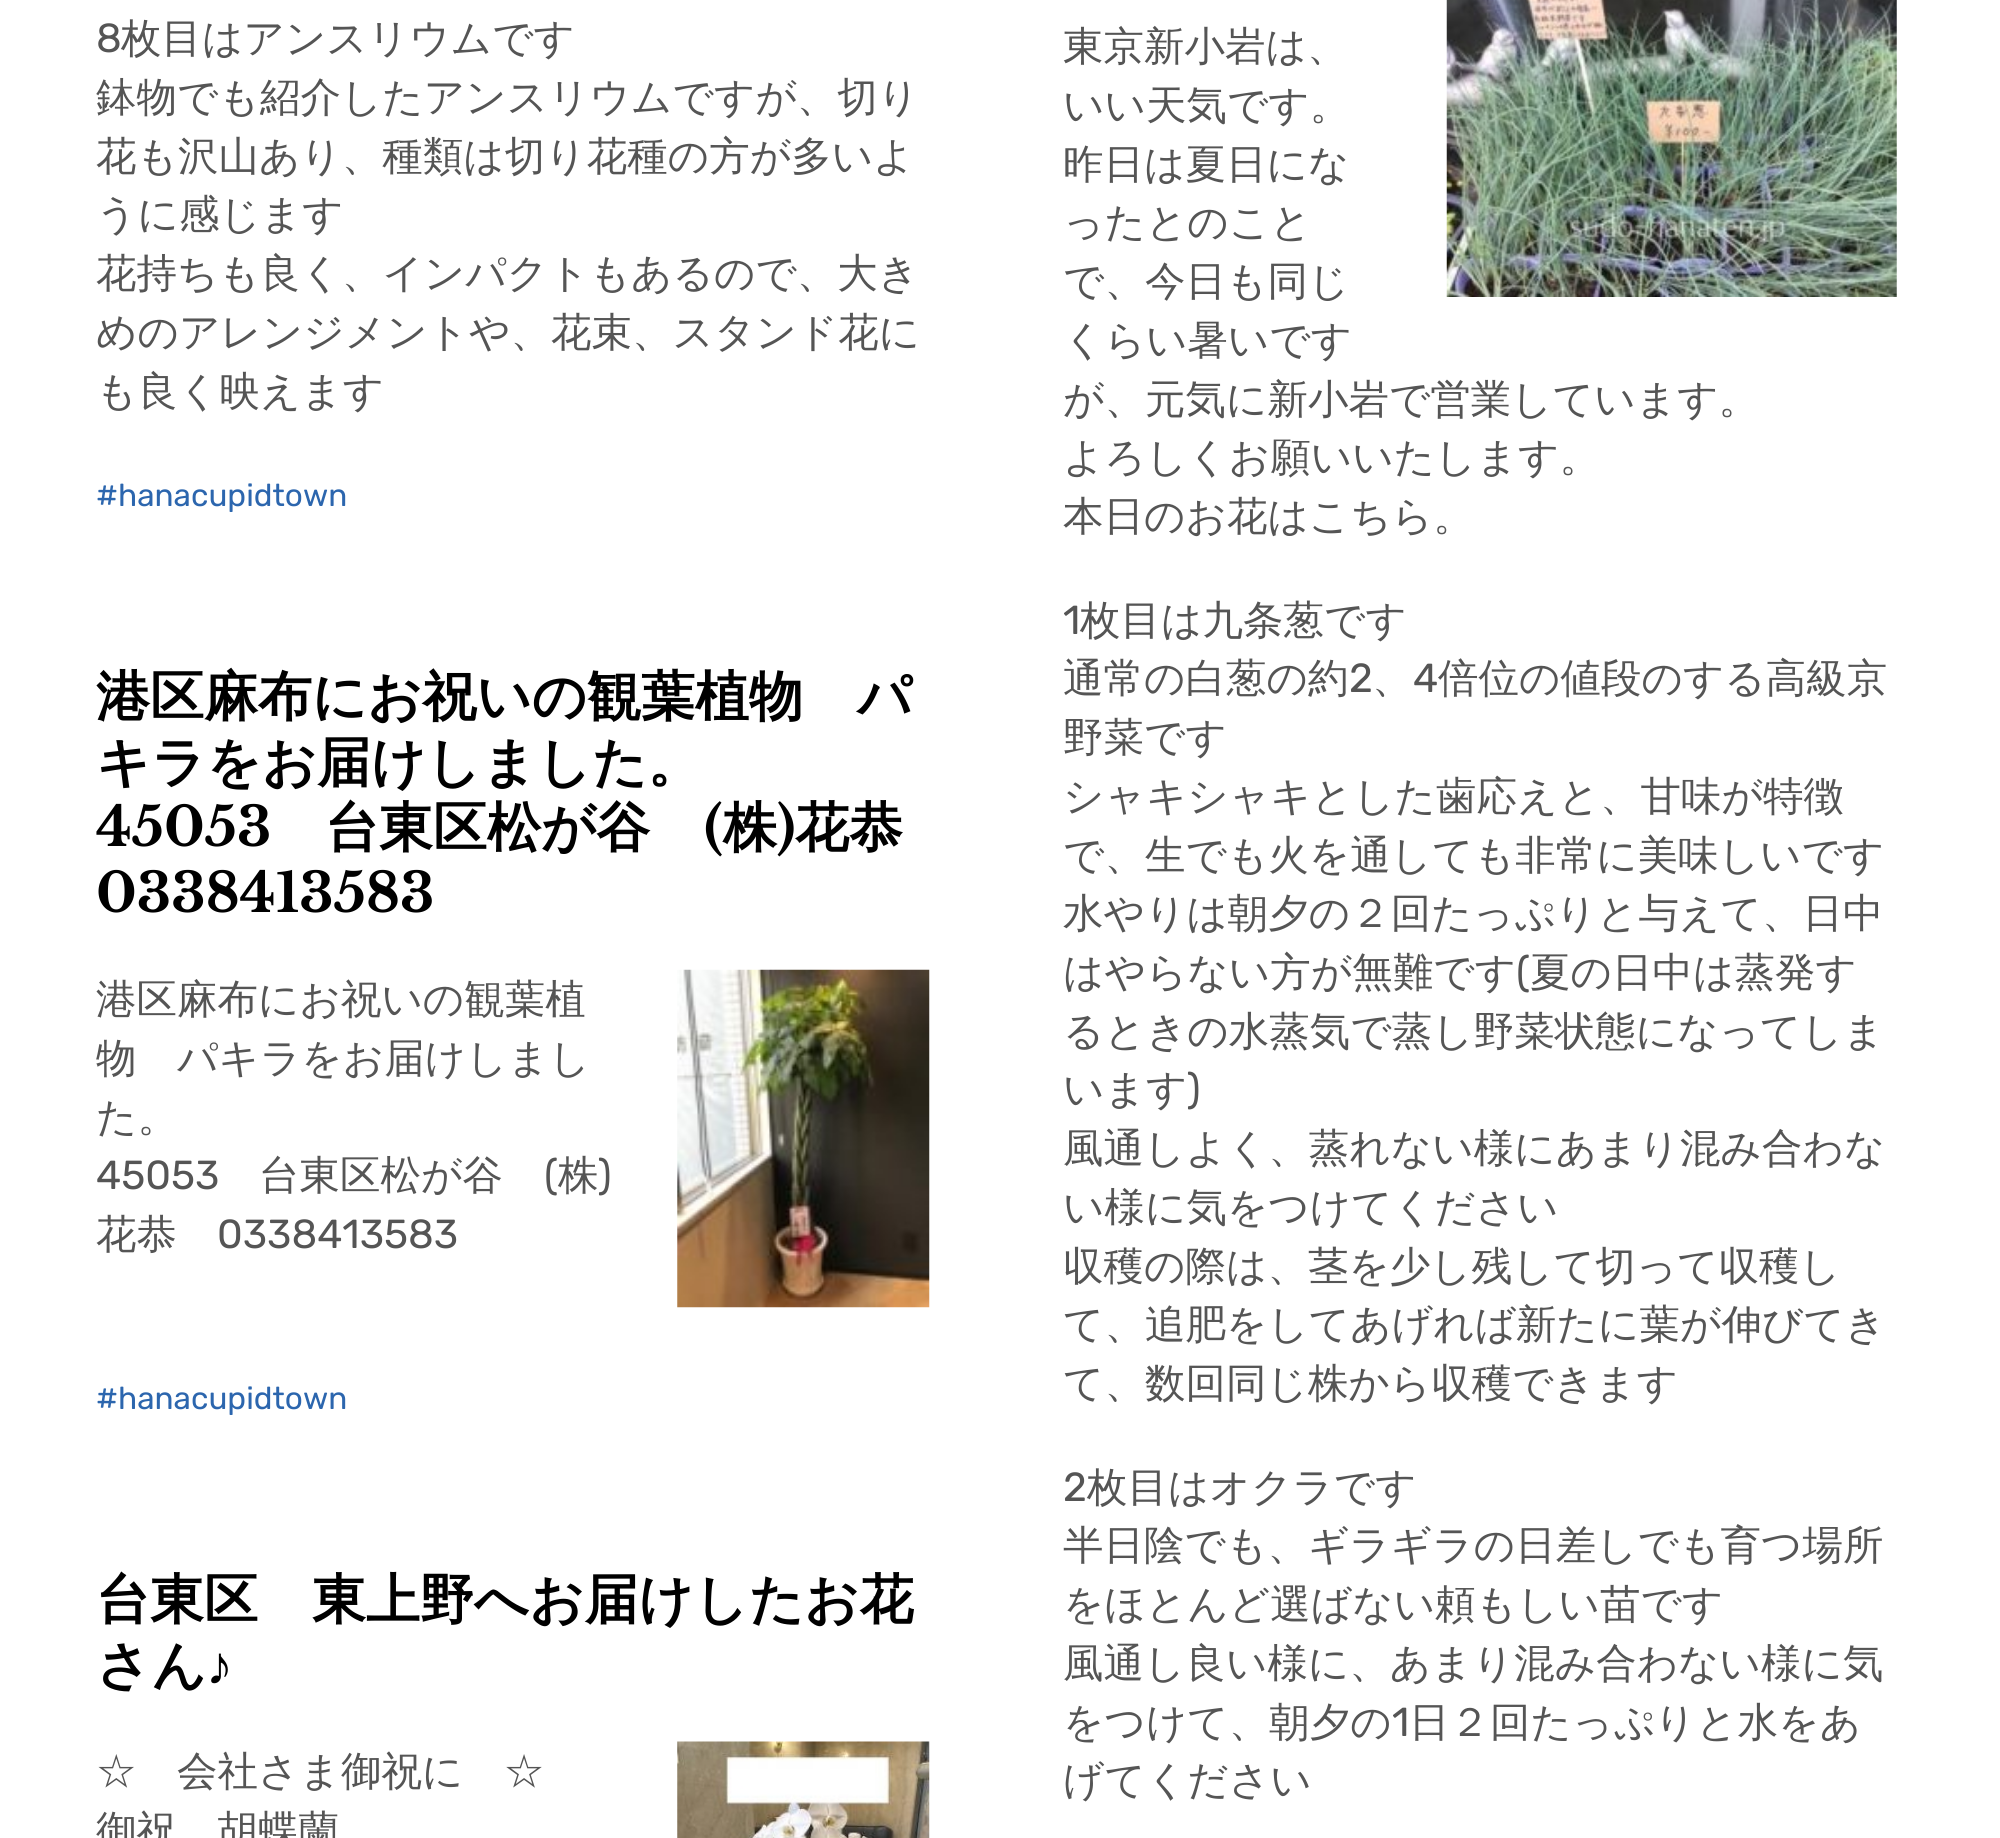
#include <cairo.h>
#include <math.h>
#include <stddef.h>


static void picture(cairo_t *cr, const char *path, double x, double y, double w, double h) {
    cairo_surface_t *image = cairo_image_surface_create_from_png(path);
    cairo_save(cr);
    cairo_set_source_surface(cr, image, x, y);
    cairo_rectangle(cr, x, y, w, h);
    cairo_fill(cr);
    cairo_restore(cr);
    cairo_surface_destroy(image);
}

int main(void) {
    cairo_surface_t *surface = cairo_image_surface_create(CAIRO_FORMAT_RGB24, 2000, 1838);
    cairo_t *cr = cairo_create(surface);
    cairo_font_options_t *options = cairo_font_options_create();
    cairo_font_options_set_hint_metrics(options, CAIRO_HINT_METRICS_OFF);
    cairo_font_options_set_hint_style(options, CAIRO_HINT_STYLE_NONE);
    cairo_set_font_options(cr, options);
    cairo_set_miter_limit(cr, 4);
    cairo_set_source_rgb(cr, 1, 1, 1);
    cairo_paint(cr);
    cairo_select_font_face(cr, "Rubik", CAIRO_FONT_SLANT_NORMAL, CAIRO_FONT_WEIGHT_NORMAL);
    cairo_set_font_size(cr, 40.5);
    cairo_set_source_rgb(cr, 0.333, 0.333, 0.333);
    cairo_move_to(cr, 96, 52);
    cairo_show_text(cr, "8");
    cairo_select_font_face(cr, "WenQuanYi Zen Hei Medium", CAIRO_FONT_SLANT_NORMAL, CAIRO_FONT_WEIGHT_NORMAL);
    cairo_move_to(cr, 121, 52);
    cairo_show_text(cr, "枚目はアンスリウムです");
    cairo_move_to(cr, 96, 111);
    cairo_show_text(cr, "鉢物でも紹介したアンスリウムですが、切り");
    cairo_move_to(cr, 96, 170);
    cairo_show_text(cr, "花も沢山あり、種類は切り花種の方が多いよ");
    cairo_move_to(cr, 96, 228);
    cairo_show_text(cr, "うに感じます");
    cairo_move_to(cr, 96, 287);
    cairo_show_text(cr, "花持ちも良く、インパクトもあるので、大き");
    cairo_move_to(cr, 96, 346);
    cairo_show_text(cr, "めのアレンジメントや、花束、スタンド花に");
    cairo_move_to(cr, 96, 405);
    cairo_show_text(cr, "も良く映えます");
    cairo_select_font_face(cr, "Rubik", CAIRO_FONT_SLANT_NORMAL, CAIRO_FONT_WEIGHT_NORMAL);
    cairo_set_font_size(cr, 31.5);
    cairo_set_source_rgb(cr, 0.173, 0.4, 0.682);
    cairo_move_to(cr, 96, 506);
    cairo_show_text(cr, "#hanacupidtown");
    picture(cr, "img1.png", 1446, 0, 451, 297);
    cairo_select_font_face(cr, "WenQuanYi Zen Hei Medium", CAIRO_FONT_SLANT_NORMAL, CAIRO_FONT_WEIGHT_NORMAL);
    cairo_set_font_size(cr, 40.5);
    cairo_set_source_rgb(cr, 0.333, 0.333, 0.333);
    cairo_move_to(cr, 1063, 60);
    cairo_show_text(cr, "東京新小岩は、");
    cairo_move_to(cr, 1063, 119);
    cairo_show_text(cr, "いい天気です。");
    cairo_move_to(cr, 1063, 178);
    cairo_show_text(cr, "昨日は夏日にな");
    cairo_move_to(cr, 1063, 236);
    cairo_show_text(cr, "ったとのこと");
    cairo_move_to(cr, 1063, 295);
    cairo_show_text(cr, "で、今日も同じ");
    cairo_move_to(cr, 1063, 354);
    cairo_show_text(cr, "くらい暑いです");
    cairo_move_to(cr, 1063, 413);
    cairo_show_text(cr, "が、元気に新小岩で営業しています。");
    cairo_move_to(cr, 1063, 471);
    cairo_show_text(cr, "よろしくお願いいたします。");
    cairo_move_to(cr, 1063, 530);
    cairo_show_text(cr, "本日のお花はこちら。");
    cairo_select_font_face(cr, "Rubik", CAIRO_FONT_SLANT_NORMAL, CAIRO_FONT_WEIGHT_NORMAL);
    cairo_move_to(cr, 1063, 634);
    cairo_show_text(cr, "1");
    cairo_select_font_face(cr, "WenQuanYi Zen Hei Medium", CAIRO_FONT_SLANT_NORMAL, CAIRO_FONT_WEIGHT_NORMAL);
    cairo_move_to(cr, 1080, 634);
    cairo_show_text(cr, "枚目は九条葱です");
    cairo_move_to(cr, 1063, 692);
    cairo_show_text(cr, "通常の白葱の約");
    cairo_select_font_face(cr, "Rubik", CAIRO_FONT_SLANT_NORMAL, CAIRO_FONT_WEIGHT_NORMAL);
    cairo_move_to(cr, 1349, 692);
    cairo_show_text(cr, "2");
    cairo_select_font_face(cr, "WenQuanYi Zen Hei Medium", CAIRO_FONT_SLANT_NORMAL, CAIRO_FONT_WEIGHT_NORMAL);
    cairo_move_to(cr, 1372, 692);
    cairo_show_text(cr, "、");
    cairo_select_font_face(cr, "Rubik", CAIRO_FONT_SLANT_NORMAL, CAIRO_FONT_WEIGHT_NORMAL);
    cairo_move_to(cr, 1413, 692);
    cairo_show_text(cr, "4");
    cairo_select_font_face(cr, "WenQuanYi Zen Hei Medium", CAIRO_FONT_SLANT_NORMAL, CAIRO_FONT_WEIGHT_NORMAL);
    cairo_move_to(cr, 1438, 692);
    cairo_show_text(cr, "倍位の値段のする高級京");
    cairo_move_to(cr, 1063, 751);
    cairo_show_text(cr, "野菜です");
    cairo_move_to(cr, 1063, 810);
    cairo_show_text(cr, "シャキシャキとした歯応えと、甘味が特徴");
    cairo_move_to(cr, 1063, 869);
    cairo_show_text(cr, "で、生でも火を通しても非常に美味しいです");
    cairo_move_to(cr, 1063, 927);
    cairo_show_text(cr, "水やりは朝夕の２回たっぷりと与えて、日中");
    cairo_move_to(cr, 1063, 986);
    cairo_show_text(cr, "はやらない方が無難です");
    cairo_select_font_face(cr, "Rubik", CAIRO_FONT_SLANT_NORMAL, CAIRO_FONT_WEIGHT_NORMAL);
    cairo_move_to(cr, 1516, 986);
    cairo_show_text(cr, "(");
    cairo_select_font_face(cr, "WenQuanYi Zen Hei Medium", CAIRO_FONT_SLANT_NORMAL, CAIRO_FONT_WEIGHT_NORMAL);
    cairo_move_to(cr, 1530, 986);
    cairo_show_text(cr, "夏の日中は蒸発す");
    cairo_move_to(cr, 1063, 1045);
    cairo_show_text(cr, "るときの水蒸気で蒸し野菜状態になってしま");
    cairo_move_to(cr, 1063, 1103);
    cairo_show_text(cr, "います");
    cairo_select_font_face(cr, "Rubik", CAIRO_FONT_SLANT_NORMAL, CAIRO_FONT_WEIGHT_NORMAL);
    cairo_move_to(cr, 1187, 1103);
    cairo_show_text(cr, ")");
    cairo_select_font_face(cr, "WenQuanYi Zen Hei Medium", CAIRO_FONT_SLANT_NORMAL, CAIRO_FONT_WEIGHT_NORMAL);
    cairo_move_to(cr, 1063, 1162);
    cairo_show_text(cr, "風通しよく、蒸れない様にあまり混み合わな");
    cairo_move_to(cr, 1063, 1221);
    cairo_show_text(cr, "い様に気をつけてください");
    cairo_move_to(cr, 1063, 1280);
    cairo_show_text(cr, "収穫の際は、茎を少し残して切って収穫し");
    cairo_move_to(cr, 1063, 1338);
    cairo_show_text(cr, "て、追肥をしてあげれば新たに葉が伸びてき");
    cairo_move_to(cr, 1063, 1397);
    cairo_show_text(cr, "て、数回同じ株から収穫できます");
    cairo_select_font_face(cr, "Rubik", CAIRO_FONT_SLANT_NORMAL, CAIRO_FONT_WEIGHT_NORMAL);
    cairo_move_to(cr, 1063, 1501);
    cairo_show_text(cr, "2");
    cairo_select_font_face(cr, "WenQuanYi Zen Hei Medium", CAIRO_FONT_SLANT_NORMAL, CAIRO_FONT_WEIGHT_NORMAL);
    cairo_move_to(cr, 1087, 1501);
    cairo_show_text(cr, "枚目はオクラです");
    cairo_move_to(cr, 1063, 1559);
    cairo_show_text(cr, "半日陰でも、ギラギラの日差しでも育つ場所");
    cairo_move_to(cr, 1063, 1618);
    cairo_show_text(cr, "をほとんど選ばない頼もしい苗です");
    cairo_move_to(cr, 1063, 1677);
    cairo_show_text(cr, "風通し良い様に、あまり混み合わない様に気");
    cairo_move_to(cr, 1063, 1736);
    cairo_show_text(cr, "をつけて、朝夕の");
    cairo_select_font_face(cr, "Rubik", CAIRO_FONT_SLANT_NORMAL, CAIRO_FONT_WEIGHT_NORMAL);
    cairo_move_to(cr, 1392, 1736);
    cairo_show_text(cr, "1");
    cairo_select_font_face(cr, "WenQuanYi Zen Hei Medium", CAIRO_FONT_SLANT_NORMAL, CAIRO_FONT_WEIGHT_NORMAL);
    cairo_move_to(cr, 1409, 1736);
    cairo_show_text(cr, "日２回たっぷりと水をあ");
    cairo_move_to(cr, 1063, 1794);
    cairo_show_text(cr, "げてください");
    cairo_select_font_face(cr, "WenQuanYi Zen Hei", CAIRO_FONT_SLANT_NORMAL, CAIRO_FONT_WEIGHT_BOLD);
    cairo_set_font_size(cr, 54);
    cairo_set_source_rgb(cr, 0, 0, 0);
    cairo_move_to(cr, 96, 715);
    cairo_show_text(cr, "港区麻布にお祝いの観葉植物　パ");
    cairo_move_to(cr, 96, 781);
    cairo_show_text(cr, "キラをお届けしました。");
    cairo_select_font_face(cr, "Libre Baskerville", CAIRO_FONT_SLANT_NORMAL, CAIRO_FONT_WEIGHT_BOLD);
    cairo_move_to(cr, 96, 846);
    cairo_show_text(cr, "45053");
    cairo_select_font_face(cr, "WenQuanYi Zen Hei", CAIRO_FONT_SLANT_NORMAL, CAIRO_FONT_WEIGHT_BOLD);
    cairo_move_to(cr, 325, 846);
    cairo_show_text(cr, "台東区松が谷");
    cairo_select_font_face(cr, "Libre Baskerville", CAIRO_FONT_SLANT_NORMAL, CAIRO_FONT_WEIGHT_BOLD);
    cairo_move_to(cr, 704, 846);
    cairo_show_text(cr, "(");
    cairo_select_font_face(cr, "WenQuanYi Zen Hei", CAIRO_FONT_SLANT_NORMAL, CAIRO_FONT_WEIGHT_BOLD);
    cairo_move_to(cr, 723, 846);
    cairo_show_text(cr, "株");
    cairo_select_font_face(cr, "Libre Baskerville", CAIRO_FONT_SLANT_NORMAL, CAIRO_FONT_WEIGHT_BOLD);
    cairo_move_to(cr, 777, 846);
    cairo_show_text(cr, ")");
    cairo_select_font_face(cr, "WenQuanYi Zen Hei", CAIRO_FONT_SLANT_NORMAL, CAIRO_FONT_WEIGHT_BOLD);
    cairo_move_to(cr, 795, 846);
    cairo_show_text(cr, "花恭");
    cairo_select_font_face(cr, "Libre Baskerville", CAIRO_FONT_SLANT_NORMAL, CAIRO_FONT_WEIGHT_BOLD);
    cairo_move_to(cr, 96, 912);
    cairo_show_text(cr, "0338413583");
    cairo_select_font_face(cr, "WenQuanYi Zen Hei Medium", CAIRO_FONT_SLANT_NORMAL, CAIRO_FONT_WEIGHT_NORMAL);
    cairo_set_font_size(cr, 40.5);
    cairo_set_source_rgb(cr, 0.333, 0.333, 0.333);
    cairo_move_to(cr, 96, 1013);
    cairo_show_text(cr, "港区麻布にお祝いの観葉植");
    cairo_move_to(cr, 96, 1072);
    cairo_show_text(cr, "物　パキラをお届けしまし");
    cairo_move_to(cr, 96, 1131);
    cairo_show_text(cr, "た。");
    cairo_select_font_face(cr, "Rubik", CAIRO_FONT_SLANT_NORMAL, CAIRO_FONT_WEIGHT_NORMAL);
    cairo_move_to(cr, 96, 1189);
    cairo_show_text(cr, "45053");
    cairo_select_font_face(cr, "WenQuanYi Zen Hei Medium", CAIRO_FONT_SLANT_NORMAL, CAIRO_FONT_WEIGHT_NORMAL);
    cairo_move_to(cr, 259, 1189);
    cairo_show_text(cr, "台東区松が谷");
    cairo_select_font_face(cr, "Rubik", CAIRO_FONT_SLANT_NORMAL, CAIRO_FONT_WEIGHT_NORMAL);
    cairo_move_to(cr, 544, 1189);
    cairo_show_text(cr, "(");
    cairo_select_font_face(cr, "WenQuanYi Zen Hei Medium", CAIRO_FONT_SLANT_NORMAL, CAIRO_FONT_WEIGHT_NORMAL);
    cairo_move_to(cr, 558, 1189);
    cairo_show_text(cr, "株");
    cairo_select_font_face(cr, "Rubik", CAIRO_FONT_SLANT_NORMAL, CAIRO_FONT_WEIGHT_NORMAL);
    cairo_move_to(cr, 598, 1189);
    cairo_show_text(cr, ")");
    cairo_select_font_face(cr, "WenQuanYi Zen Hei Medium", CAIRO_FONT_SLANT_NORMAL, CAIRO_FONT_WEIGHT_NORMAL);
    cairo_move_to(cr, 96, 1248);
    cairo_show_text(cr, "花恭");
    cairo_select_font_face(cr, "Rubik", CAIRO_FONT_SLANT_NORMAL, CAIRO_FONT_WEIGHT_NORMAL);
    cairo_move_to(cr, 217, 1248);
    cairo_show_text(cr, "0338413583");
    picture(cr, "img2.png", 677, 969, 253, 339);
    cairo_set_font_size(cr, 31.5);
    cairo_set_source_rgb(cr, 0.173, 0.4, 0.682);
    cairo_move_to(cr, 96, 1409);
    cairo_show_text(cr, "#hanacupidtown");
    cairo_select_font_face(cr, "WenQuanYi Zen Hei", CAIRO_FONT_SLANT_NORMAL, CAIRO_FONT_WEIGHT_BOLD);
    cairo_set_font_size(cr, 54);
    cairo_set_source_rgb(cr, 0, 0, 0);
    cairo_move_to(cr, 96, 1618);
    cairo_show_text(cr, "台東区　東上野へお届けしたお花");
    cairo_move_to(cr, 96, 1684);
    cairo_show_text(cr, "さん");
    cairo_select_font_face(cr, "Liberation Serif", CAIRO_FONT_SLANT_NORMAL, CAIRO_FONT_WEIGHT_BOLD);
    cairo_move_to(cr, 206, 1684);
    cairo_show_text(cr, "♪");
    cairo_select_font_face(cr, "WenQuanYi Zen Hei Medium", CAIRO_FONT_SLANT_NORMAL, CAIRO_FONT_WEIGHT_NORMAL);
    cairo_set_font_size(cr, 40.5);
    cairo_set_source_rgb(cr, 0.333, 0.333, 0.333);
    cairo_move_to(cr, 96, 1785);
    cairo_show_text(cr, "☆　会社さま御祝に　☆");
    cairo_move_to(cr, 96, 1844);
    cairo_show_text(cr, "御祝　胡蝶蘭");
    picture(cr, "img3.png", 677, 1741, 253, 97);
    cairo_surface_write_to_png(surface, "page.png");
    cairo_font_options_destroy(options);
    cairo_destroy(cr);
    cairo_surface_destroy(surface);
    return 0;
}
